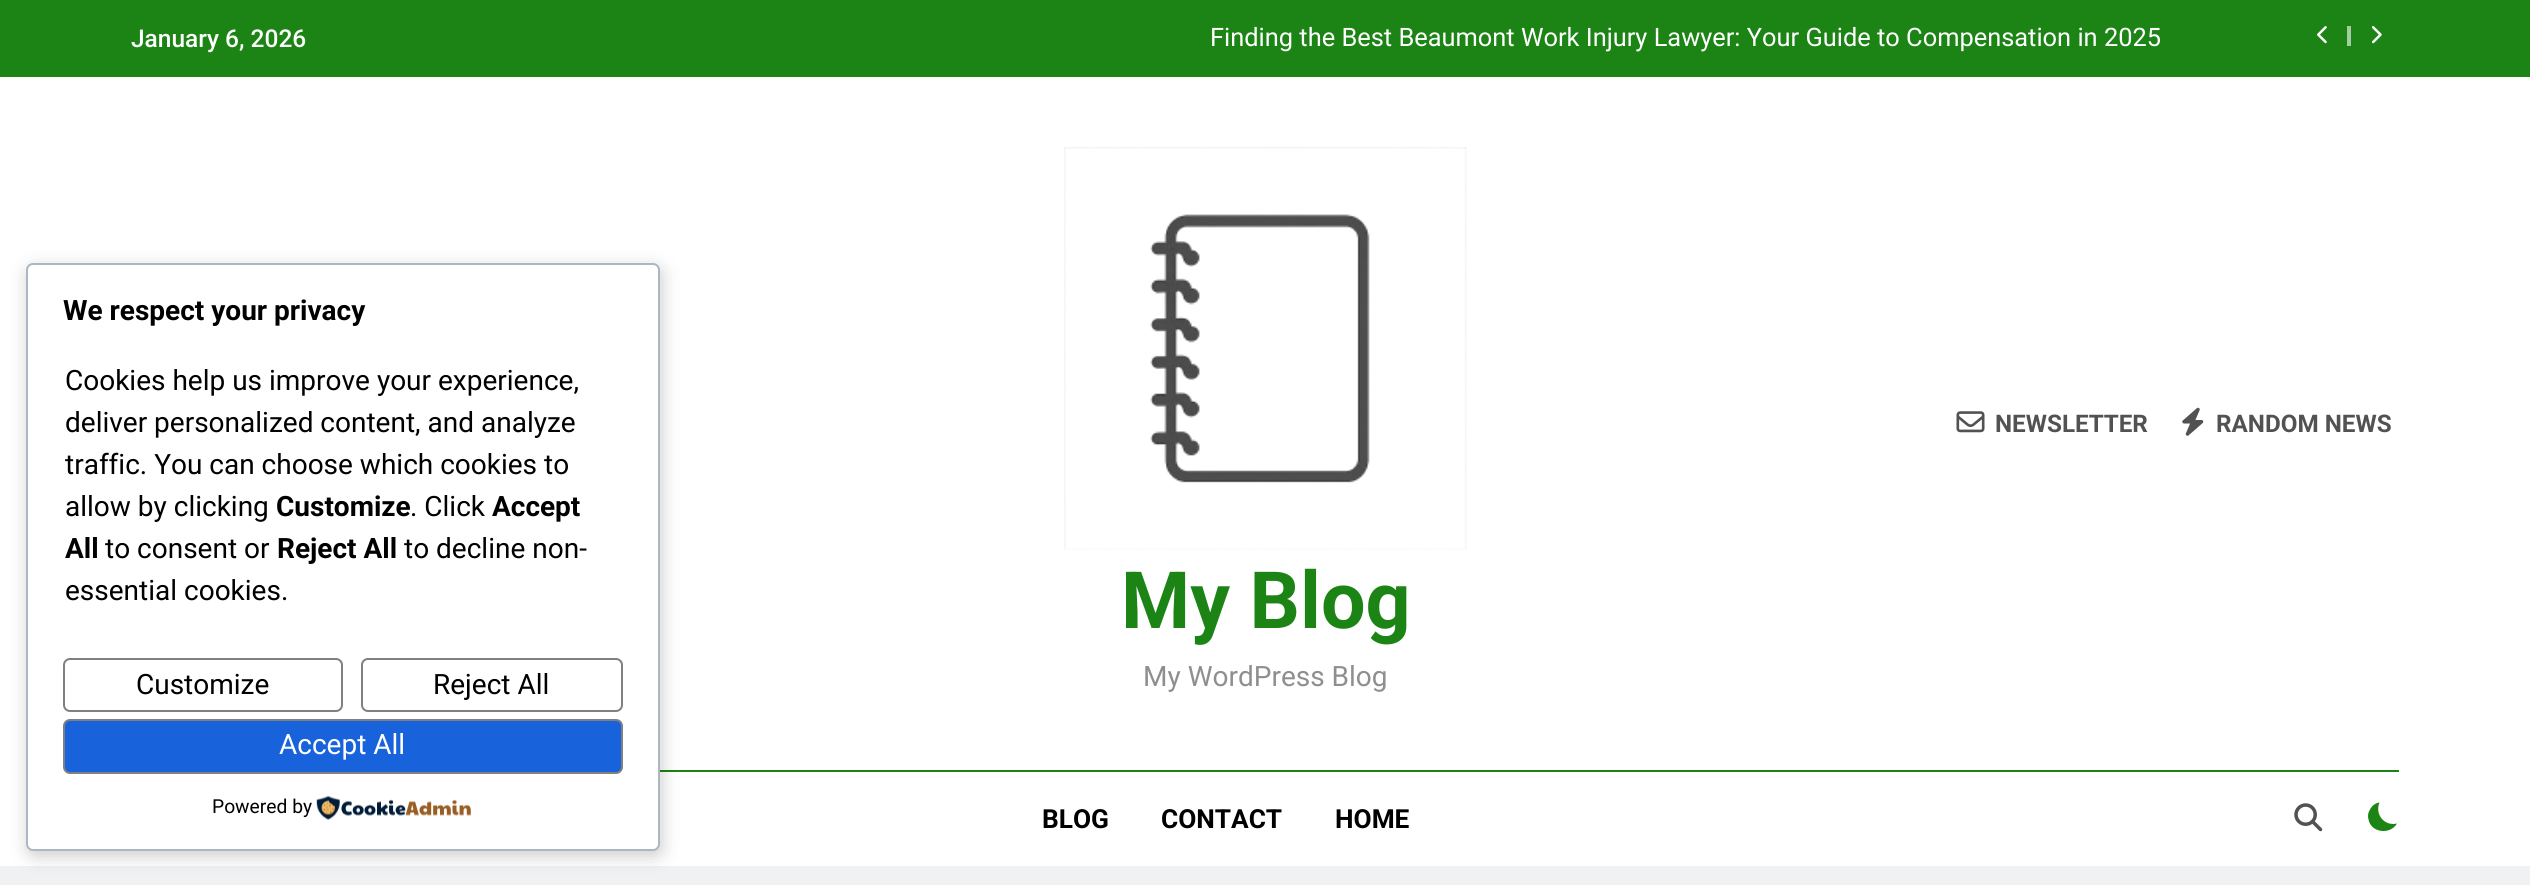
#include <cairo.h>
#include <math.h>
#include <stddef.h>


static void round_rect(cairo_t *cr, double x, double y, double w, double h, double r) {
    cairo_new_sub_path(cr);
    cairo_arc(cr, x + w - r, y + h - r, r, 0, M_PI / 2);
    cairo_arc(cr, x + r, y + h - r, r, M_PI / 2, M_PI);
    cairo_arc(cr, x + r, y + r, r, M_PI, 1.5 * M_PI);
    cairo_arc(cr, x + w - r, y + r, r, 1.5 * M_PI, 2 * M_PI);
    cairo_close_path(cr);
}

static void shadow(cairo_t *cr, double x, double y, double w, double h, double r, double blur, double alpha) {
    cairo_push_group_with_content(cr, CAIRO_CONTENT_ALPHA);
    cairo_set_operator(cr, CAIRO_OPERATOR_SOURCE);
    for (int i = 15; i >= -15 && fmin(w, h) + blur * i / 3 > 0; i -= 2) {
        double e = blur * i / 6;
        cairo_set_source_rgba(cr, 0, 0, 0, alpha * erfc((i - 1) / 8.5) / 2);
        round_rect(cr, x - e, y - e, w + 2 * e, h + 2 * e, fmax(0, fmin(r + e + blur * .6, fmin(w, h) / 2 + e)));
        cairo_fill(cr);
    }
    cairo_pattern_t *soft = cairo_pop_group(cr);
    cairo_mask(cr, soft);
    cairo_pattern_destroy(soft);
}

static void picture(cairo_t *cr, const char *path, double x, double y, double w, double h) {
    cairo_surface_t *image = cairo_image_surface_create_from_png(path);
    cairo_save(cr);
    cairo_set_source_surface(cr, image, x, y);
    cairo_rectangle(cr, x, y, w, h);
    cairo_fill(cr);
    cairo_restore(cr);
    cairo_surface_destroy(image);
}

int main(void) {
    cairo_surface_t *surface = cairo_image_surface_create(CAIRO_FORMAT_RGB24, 2530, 885);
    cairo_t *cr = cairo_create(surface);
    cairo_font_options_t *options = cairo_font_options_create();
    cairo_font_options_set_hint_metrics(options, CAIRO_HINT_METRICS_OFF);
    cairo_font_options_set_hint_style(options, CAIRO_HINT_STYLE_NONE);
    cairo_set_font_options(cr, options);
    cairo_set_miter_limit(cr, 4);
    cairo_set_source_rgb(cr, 0.941, 0.945, 0.949);
    cairo_paint(cr);
    cairo_set_source_rgb(cr, 0.106, 0.518, 0.082);
    cairo_rectangle(cr, 0, 0, 2530, 77);
    cairo_fill(cr);
    cairo_select_font_face(cr, "Roboto Medium", CAIRO_FONT_SLANT_NORMAL, CAIRO_FONT_WEIGHT_NORMAL);
    cairo_set_font_size(cr, 24.5);
    cairo_set_source_rgb(cr, 1, 1, 1);
    cairo_move_to(cr, 131, 47);
    cairo_show_text(cr, "January 6, 2026");
    cairo_select_font_face(cr, "Roboto", CAIRO_FONT_SLANT_NORMAL, CAIRO_FONT_WEIGHT_NORMAL);
    cairo_set_font_size(cr, 25.4);
    cairo_move_to(cr, 1210, 46);
    cairo_show_text(cr, "Finding the Best Beaumont Work Injury Lawyer: Your Guide to Compensation in 2025");
    picture(cr, "img1.png", 2317, 26, 10, 18);
    cairo_set_source_rgb(cr, 0.643, 0.808, 0.631);
    cairo_rectangle(cr, 2347, 26, 4, 20);
    cairo_fill(cr);
    picture(cr, "img2.png", 2372, 26, 10, 18);
    cairo_set_source_rgb(cr, 1, 1, 1);
    cairo_rectangle(cr, 0, 77, 2530, 789);
    cairo_fill(cr);
    picture(cr, "img3.png", 1956, 411, 29, 22);
    cairo_select_font_face(cr, "Roboto", CAIRO_FONT_SLANT_NORMAL, CAIRO_FONT_WEIGHT_BOLD);
    cairo_set_font_size(cr, 24.25);
    cairo_set_source_rgb(cr, 0.322, 0.322, 0.322);
    cairo_move_to(cr, 1995, 432);
    cairo_show_text(cr, "NEWSLETTER");
    picture(cr, "img4.png", 2182, 407, 22, 29);
    cairo_move_to(cr, 2216, 432);
    cairo_show_text(cr, "RANDOM NEWS");
    picture(cr, "img5.png", 1064, 147, 403, 403);
    cairo_set_font_size(cr, 79);
    cairo_set_source_rgb(cr, 0.106, 0.518, 0.082);
    cairo_move_to(cr, 1121, 628);
    cairo_show_text(cr, "My Blog");
    cairo_select_font_face(cr, "Roboto", CAIRO_FONT_SLANT_NORMAL, CAIRO_FONT_WEIGHT_NORMAL);
    cairo_set_font_size(cr, 28);
    cairo_set_source_rgb(cr, 0.561, 0.561, 0.561);
    cairo_move_to(cr, 1143, 686);
    cairo_show_text(cr, "My WordPress Blog");
    cairo_set_source_rgb(cr, 0.106, 0.518, 0.082);
    cairo_rectangle(cr, 660, 770, 1739, 2);
    cairo_fill(cr);
    cairo_select_font_face(cr, "Roboto", CAIRO_FONT_SLANT_NORMAL, CAIRO_FONT_WEIGHT_BOLD);
    cairo_set_font_size(cr, 26.25);
    cairo_set_source_rgb(cr, 0, 0, 0);
    cairo_move_to(cr, 1042, 828);
    cairo_show_text(cr, "BLOG");
    cairo_move_to(cr, 1161, 828);
    cairo_show_text(cr, "CONTACT");
    cairo_move_to(cr, 1335, 828);
    cairo_show_text(cr, "HOME");
    picture(cr, "img6.png", 2294, 803, 29, 29);
    cairo_set_source_rgb(cr, 0.106, 0.518, 0.082);
    cairo_new_path(cr);
    cairo_move_to(cr, 2397, 823.5);
    cairo_curve_to(cr, 2384.5, 826.5, 2374.5, 814.5, 2379.5, 802.5);
    cairo_curve_to(cr, 2375.5, 803, 2372, 805.5, 2370, 809.5);
    cairo_curve_to(cr, 2368, 812.5, 2367.5, 816, 2368.5, 819.5);
    cairo_curve_to(cr, 2371, 833, 2390.5, 835, 2397, 823.5);
    cairo_close_path(cr);
    cairo_fill(cr);
    cairo_set_source_rgb(cr, 0, 0, 0);
    shadow(cr, 28, 268, 634, 588, 7, 9, 0.2);
    cairo_set_source_rgb(cr, 1, 1, 1);
    round_rect(cr, 27, 264, 632, 586, 6);
    cairo_fill_preserve(cr);
    cairo_set_source_rgb(cr, 0.671, 0.722, 0.765);
    cairo_stroke(cr);
    cairo_set_font_size(cr, 28);
    cairo_set_source_rgb(cr, 0, 0, 0);
    cairo_move_to(cr, 63, 320);
    cairo_show_text(cr, "We respect your privacy");
    cairo_select_font_face(cr, "Roboto", CAIRO_FONT_SLANT_NORMAL, CAIRO_FONT_WEIGHT_NORMAL);
    cairo_move_to(cr, 65, 390);
    cairo_show_text(cr, "Cookies help us improve your experience,");
    cairo_move_to(cr, 65, 432);
    cairo_show_text(cr, "deliver personalized content, and analyze");
    cairo_move_to(cr, 65, 474);
    cairo_show_text(cr, "traffic. You can choose which cookies to");
    cairo_move_to(cr, 65, 516);
    cairo_show_text(cr, "allow by clicking");
    cairo_select_font_face(cr, "Roboto", CAIRO_FONT_SLANT_NORMAL, CAIRO_FONT_WEIGHT_BOLD);
    cairo_move_to(cr, 276, 516);
    cairo_show_text(cr, "Customize");
    cairo_select_font_face(cr, "Roboto", CAIRO_FONT_SLANT_NORMAL, CAIRO_FONT_WEIGHT_NORMAL);
    cairo_move_to(cr, 410, 516);
    cairo_show_text(cr, ". Click");
    cairo_select_font_face(cr, "Roboto", CAIRO_FONT_SLANT_NORMAL, CAIRO_FONT_WEIGHT_BOLD);
    cairo_move_to(cr, 492, 516);
    cairo_show_text(cr, "Accept");
    cairo_move_to(cr, 65, 558);
    cairo_show_text(cr, "All");
    cairo_select_font_face(cr, "Roboto", CAIRO_FONT_SLANT_NORMAL, CAIRO_FONT_WEIGHT_NORMAL);
    cairo_move_to(cr, 105, 558);
    cairo_show_text(cr, "to consent or");
    cairo_select_font_face(cr, "Roboto", CAIRO_FONT_SLANT_NORMAL, CAIRO_FONT_WEIGHT_BOLD);
    cairo_move_to(cr, 277, 558);
    cairo_show_text(cr, "Reject All");
    cairo_select_font_face(cr, "Roboto", CAIRO_FONT_SLANT_NORMAL, CAIRO_FONT_WEIGHT_NORMAL);
    cairo_move_to(cr, 404, 558);
    cairo_show_text(cr, "to decline non-");
    cairo_move_to(cr, 65, 600);
    cairo_show_text(cr, "essential cookies.");
    round_rect(cr, 64, 659, 278, 52, 6);
    cairo_set_source_rgb(cr, 0.502, 0.502, 0.502);
    cairo_stroke(cr);
    cairo_set_source_rgb(cr, 0, 0, 0);
    cairo_move_to(cr, 136, 694);
    cairo_show_text(cr, "Customize");
    round_rect(cr, 362, 659, 260, 52, 6);
    cairo_set_source_rgb(cr, 0.502, 0.502, 0.502);
    cairo_stroke(cr);
    cairo_set_source_rgb(cr, 0, 0, 0);
    cairo_move_to(cr, 433, 694);
    cairo_show_text(cr, "Reject All");
    cairo_set_source_rgb(cr, 0.094, 0.388, 0.863);
    round_rect(cr, 64, 720, 558, 53, 6);
    cairo_fill_preserve(cr);
    cairo_set_source_rgb(cr, 0.502, 0.502, 0.502);
    cairo_stroke(cr);
    cairo_set_source_rgb(cr, 1, 1, 1);
    cairo_move_to(cr, 279, 754);
    cairo_show_text(cr, "Accept All");
    cairo_set_font_size(cr, 19.25);
    cairo_set_source_rgb(cr, 0, 0, 0);
    cairo_move_to(cr, 212, 813);
    cairo_show_text(cr, "Powered by");
    picture(cr, "img7.png", 316, 795, 155, 25);
    cairo_surface_write_to_png(surface, "page.png");
    cairo_font_options_destroy(options);
    cairo_destroy(cr);
    cairo_surface_destroy(surface);
    return 0;
}
